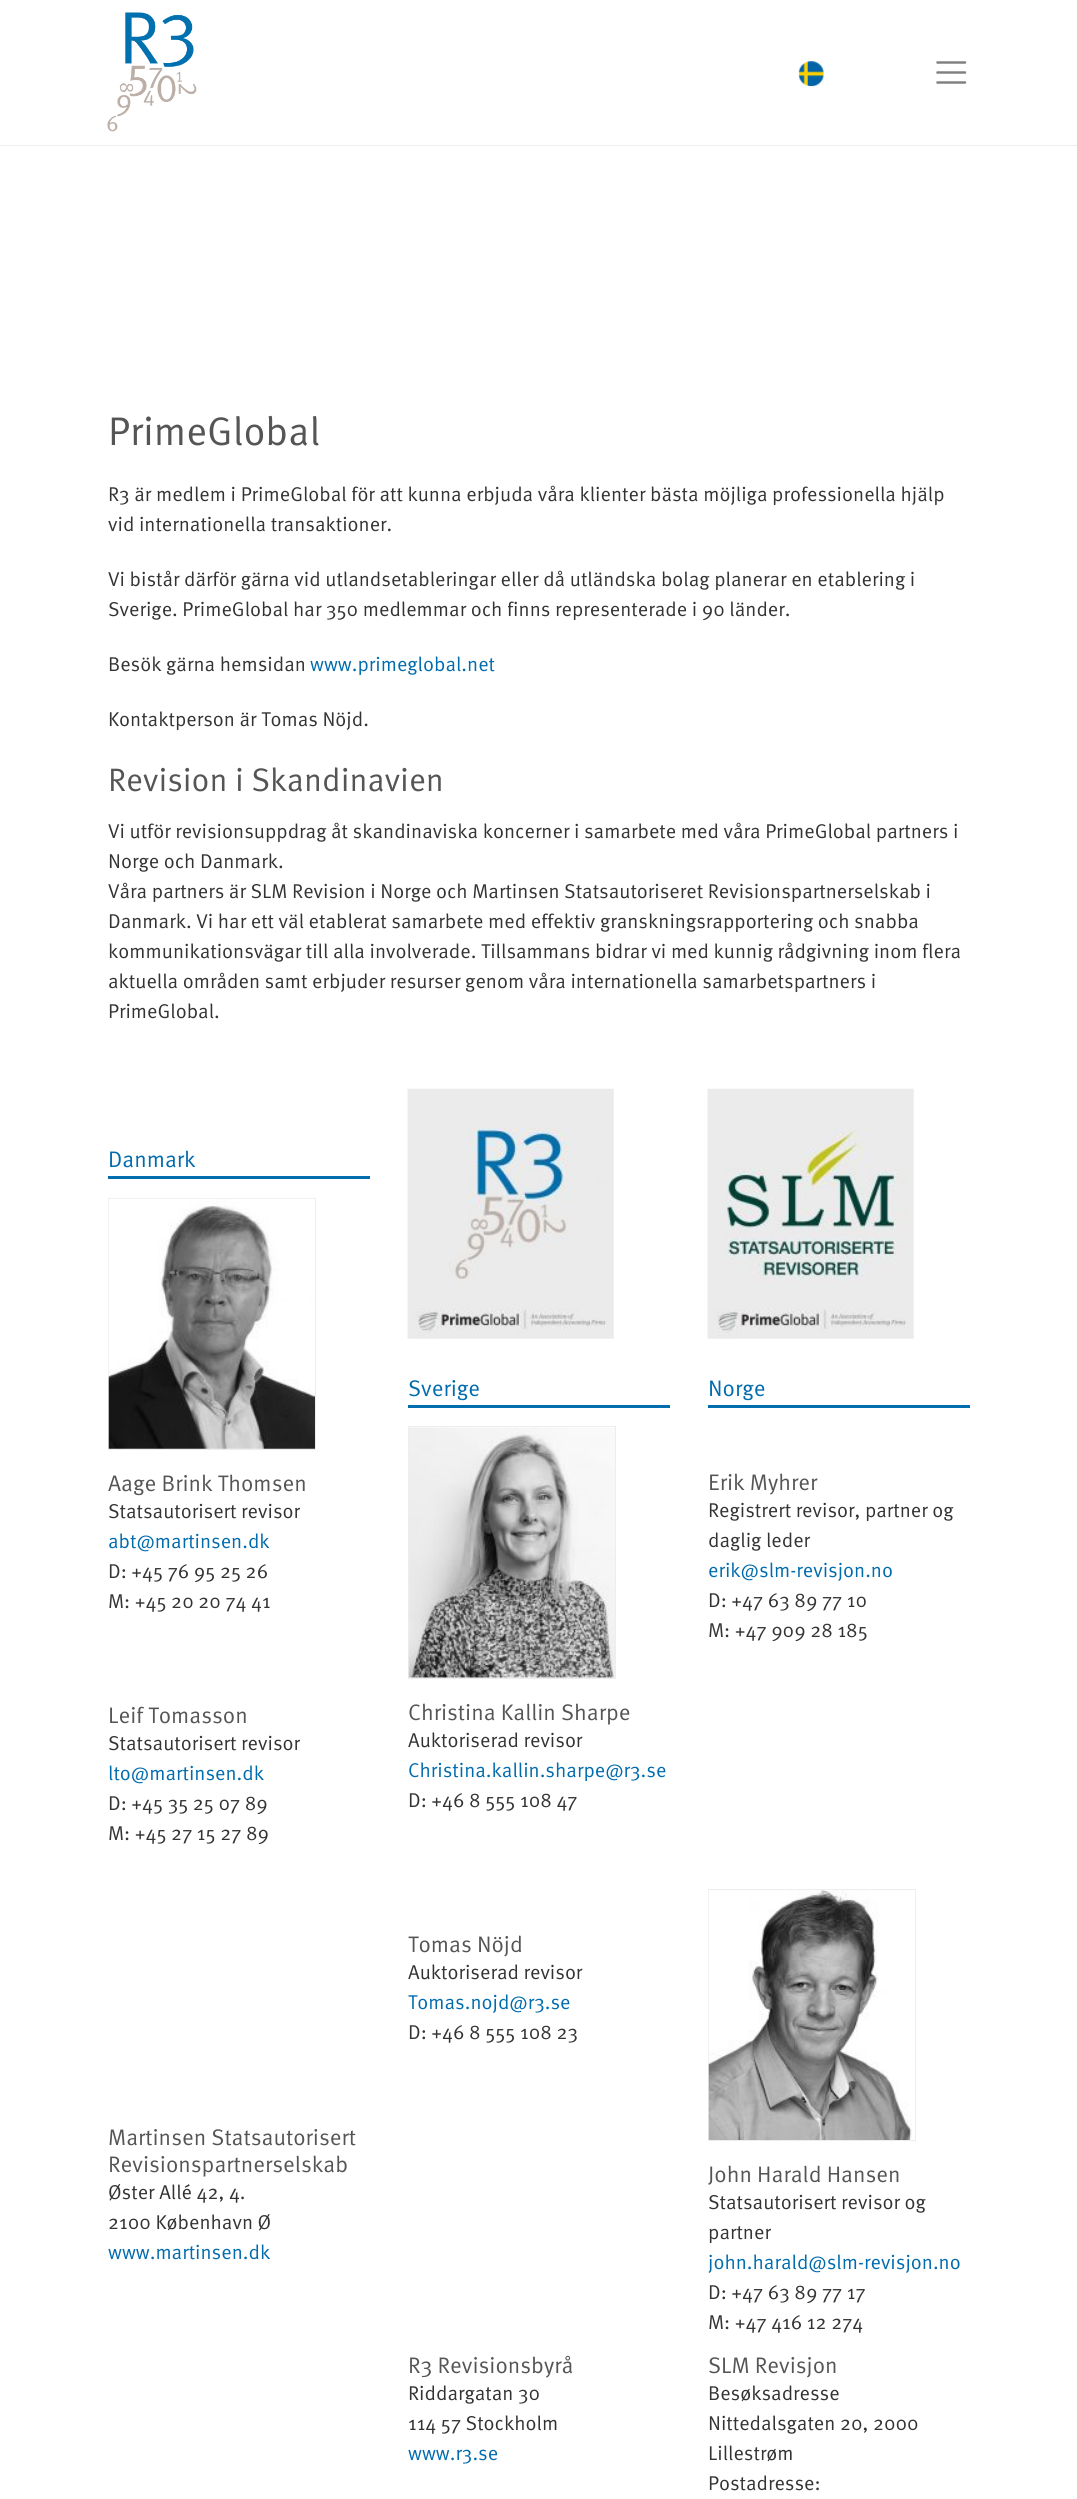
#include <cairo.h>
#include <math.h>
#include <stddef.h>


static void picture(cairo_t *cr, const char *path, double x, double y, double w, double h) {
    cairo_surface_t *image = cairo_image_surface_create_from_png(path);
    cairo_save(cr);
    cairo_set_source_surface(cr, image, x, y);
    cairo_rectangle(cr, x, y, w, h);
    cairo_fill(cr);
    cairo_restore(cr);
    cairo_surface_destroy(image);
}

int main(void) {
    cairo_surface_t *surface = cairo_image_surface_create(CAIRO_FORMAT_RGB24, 1077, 2499);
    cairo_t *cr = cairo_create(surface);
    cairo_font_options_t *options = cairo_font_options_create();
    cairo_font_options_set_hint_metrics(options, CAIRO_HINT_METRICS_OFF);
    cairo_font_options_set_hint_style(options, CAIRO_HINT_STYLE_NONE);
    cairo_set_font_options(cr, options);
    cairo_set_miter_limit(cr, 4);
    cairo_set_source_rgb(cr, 1, 1, 1);
    cairo_paint(cr);
    cairo_set_source_rgb(cr, 0.933, 0.933, 0.933);
    cairo_rectangle(cr, 0, 145, 1077, 1);
    cairo_fill(cr);
    picture(cr, "img1.png", 107, 12, 90, 120);
    picture(cr, "img2.png", 798, 61, 26, 26);
    cairo_new_path(cr);
    cairo_move_to(cr, 937.5, 62.5);
    cairo_line_to(cr, 965, 62.5);
    cairo_move_to(cr, 937.5, 72.5);
    cairo_line_to(cr, 965, 72.5);
    cairo_move_to(cr, 937.5, 82.5);
    cairo_line_to(cr, 965, 82.5);
    cairo_set_source_rgb(cr, 0.502, 0.502, 0.502);
    cairo_set_line_width(cr, 2.5);
    cairo_set_line_cap(cr, CAIRO_LINE_CAP_ROUND);
    cairo_stroke(cr);
    cairo_select_font_face(cr, "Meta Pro", CAIRO_FONT_SLANT_NORMAL, CAIRO_FONT_WEIGHT_NORMAL);
    cairo_set_font_size(cr, 40);
    cairo_set_source_rgb(cr, 0.333, 0.333, 0.333);
    cairo_move_to(cr, 108, 445);
    cairo_show_text(cr, "PrimeGlobal");
    cairo_set_font_size(cr, 20);
    cairo_set_source_rgb(cr, 0.2, 0.2, 0.2);
    cairo_move_to(cr, 108, 501);
    cairo_show_text(cr, "R3 är medlem i PrimeGlobal för att kunna erbjuda våra klienter bästa möjliga professionella hjälp");
    cairo_move_to(cr, 108, 531);
    cairo_show_text(cr, "vid internationella transaktioner.");
    cairo_move_to(cr, 108, 586);
    cairo_show_text(cr, "Vi bistår därför gärna vid utlandsetableringar eller då utländska bolag planerar en etablering i");
    cairo_move_to(cr, 108, 616);
    cairo_show_text(cr, "Sverige. PrimeGlobal har 350 medlemmar och finns representerade i 90 länder.");
    cairo_move_to(cr, 108, 671);
    cairo_show_text(cr, "Besök gärna hemsidan");
    cairo_set_source_rgb(cr, 0, 0.42, 0.678);
    cairo_move_to(cr, 310, 671);
    cairo_show_text(cr, "www.primeglobal.net");
    cairo_set_source_rgb(cr, 0.2, 0.2, 0.2);
    cairo_move_to(cr, 108, 726);
    cairo_show_text(cr, "Kontaktperson är Tomas Nöjd.");
    cairo_set_font_size(cr, 32.5);
    cairo_set_source_rgb(cr, 0.333, 0.333, 0.333);
    cairo_move_to(cr, 108, 791);
    cairo_show_text(cr, "Revision i Skandinavien");
    cairo_set_font_size(cr, 20);
    cairo_set_source_rgb(cr, 0.2, 0.2, 0.2);
    cairo_move_to(cr, 108, 838);
    cairo_show_text(cr, "Vi utför revisionsuppdrag åt skandinaviska koncerner i samarbete med våra PrimeGlobal partners i");
    cairo_move_to(cr, 108, 868);
    cairo_show_text(cr, "Norge och Danmark.");
    cairo_move_to(cr, 108, 898);
    cairo_show_text(cr, "Våra partners är SLM Revision i Norge och Martinsen Statsautoriseret Revisionspartnerselskab i");
    cairo_move_to(cr, 108, 928);
    cairo_show_text(cr, "Danmark. Vi har ett väl etablerat samarbete med effektiv granskningsrapportering och snabba");
    cairo_move_to(cr, 108, 958);
    cairo_show_text(cr, "kommunikationsvägar till alla involverade. Tillsammans bidrar vi med kunnig rådgivning inom flera");
    cairo_move_to(cr, 108, 988);
    cairo_show_text(cr, "aktuella områden samt erbjuder resurser genom våra internationella samarbetspartners i");
    cairo_move_to(cr, 108, 1018);
    cairo_show_text(cr, "PrimeGlobal.");
    cairo_set_source_rgb(cr, 0, 0.431, 0.682);
    cairo_rectangle(cr, 108, 1176, 262, 3);
    cairo_fill(cr);
    cairo_set_font_size(cr, 22.5);
    cairo_set_source_rgb(cr, 0, 0.42, 0.678);
    cairo_move_to(cr, 108, 1167);
    cairo_show_text(cr, "Danmark");
    cairo_rectangle(cr, 108.5, 1198.5, 207, 251);
    cairo_set_source_rgb(cr, 0.929, 0.929, 0.929);
    cairo_set_line_width(cr, 1);
    cairo_set_line_cap(cr, CAIRO_LINE_CAP_BUTT);
    cairo_stroke(cr);
    picture(cr, "img3.png", 108, 1198, 207, 251);
    cairo_set_source_rgb(cr, 0.333, 0.333, 0.333);
    cairo_move_to(cr, 108, 1491);
    cairo_show_text(cr, "Aage Brink Thomsen");
    cairo_set_font_size(cr, 20);
    cairo_set_source_rgb(cr, 0.2, 0.2, 0.2);
    cairo_move_to(cr, 108, 1518);
    cairo_show_text(cr, "Statsautorisert revisor");
    cairo_set_source_rgb(cr, 0, 0.42, 0.678);
    cairo_move_to(cr, 108, 1548);
    cairo_show_text(cr, "abt@martinsen.dk");
    cairo_set_source_rgb(cr, 0.2, 0.2, 0.2);
    cairo_move_to(cr, 108, 1578);
    cairo_show_text(cr, "D: +45 76 95 25 26");
    cairo_move_to(cr, 108, 1608);
    cairo_show_text(cr, "M: +45 20 20 74 41");
    cairo_set_font_size(cr, 22.5);
    cairo_set_source_rgb(cr, 0.333, 0.333, 0.333);
    cairo_move_to(cr, 108, 1723);
    cairo_show_text(cr, "Leif Tomasson");
    cairo_set_font_size(cr, 20);
    cairo_set_source_rgb(cr, 0.2, 0.2, 0.2);
    cairo_move_to(cr, 108, 1750);
    cairo_show_text(cr, "Statsautorisert revisor");
    cairo_set_source_rgb(cr, 0, 0.42, 0.678);
    cairo_move_to(cr, 108, 1780);
    cairo_show_text(cr, "lto@martinsen.dk");
    cairo_set_source_rgb(cr, 0.2, 0.2, 0.2);
    cairo_move_to(cr, 108, 1810);
    cairo_show_text(cr, "D: +45 35 25 07 89");
    cairo_move_to(cr, 108, 1840);
    cairo_show_text(cr, "M: +45 27 15 27 89");
    cairo_set_font_size(cr, 22.5);
    cairo_set_source_rgb(cr, 0.333, 0.333, 0.333);
    cairo_move_to(cr, 108, 2145);
    cairo_show_text(cr, "Martinsen Statsautorisert");
    cairo_move_to(cr, 108, 2172);
    cairo_show_text(cr, "Revisionspartnerselskab");
    cairo_set_font_size(cr, 20);
    cairo_set_source_rgb(cr, 0.2, 0.2, 0.2);
    cairo_move_to(cr, 108, 2199);
    cairo_show_text(cr, "Øster Allé 42, 4.");
    cairo_move_to(cr, 108, 2229);
    cairo_show_text(cr, "2100 København Ø");
    cairo_set_source_rgb(cr, 0, 0.42, 0.678);
    cairo_move_to(cr, 108, 2259);
    cairo_show_text(cr, "www.martinsen.dk");
    picture(cr, "img4.png", 407, 1088, 207, 251);
    cairo_set_source_rgb(cr, 0, 0.431, 0.682);
    cairo_rectangle(cr, 408, 1405, 262, 3);
    cairo_fill(cr);
    cairo_set_font_size(cr, 22.5);
    cairo_set_source_rgb(cr, 0, 0.42, 0.678);
    cairo_move_to(cr, 408, 1396);
    cairo_show_text(cr, "Sverige");
    cairo_rectangle(cr, 408.5, 1426.5, 207, 252);
    cairo_set_source_rgb(cr, 0.929, 0.929, 0.929);
    cairo_stroke(cr);
    picture(cr, "img5.png", 408, 1427, 207, 251);
    cairo_set_source_rgb(cr, 0.333, 0.333, 0.333);
    cairo_move_to(cr, 408, 1720);
    cairo_show_text(cr, "Christina Kallin Sharpe");
    cairo_set_font_size(cr, 20);
    cairo_set_source_rgb(cr, 0.2, 0.2, 0.2);
    cairo_move_to(cr, 408, 1747);
    cairo_show_text(cr, "Auktoriserad revisor");
    cairo_set_source_rgb(cr, 0, 0.42, 0.678);
    cairo_move_to(cr, 408, 1777);
    cairo_show_text(cr, "Christina.kallin.sharpe@r3.se");
    cairo_set_source_rgb(cr, 0.2, 0.2, 0.2);
    cairo_move_to(cr, 408, 1807);
    cairo_show_text(cr, "D: +46 8 555 108 47");
    cairo_set_font_size(cr, 22.5);
    cairo_set_source_rgb(cr, 0.333, 0.333, 0.333);
    cairo_move_to(cr, 408, 1952);
    cairo_show_text(cr, "Tomas Nöjd");
    cairo_set_font_size(cr, 20);
    cairo_set_source_rgb(cr, 0.2, 0.2, 0.2);
    cairo_move_to(cr, 408, 1979);
    cairo_show_text(cr, "Auktoriserad revisor");
    cairo_set_source_rgb(cr, 0, 0.42, 0.678);
    cairo_move_to(cr, 408, 2009);
    cairo_show_text(cr, "Tomas.nojd@r3.se");
    cairo_set_source_rgb(cr, 0.2, 0.2, 0.2);
    cairo_move_to(cr, 408, 2039);
    cairo_show_text(cr, "D: +46 8 555 108 23");
    cairo_set_font_size(cr, 22.5);
    cairo_set_source_rgb(cr, 0.333, 0.333, 0.333);
    cairo_move_to(cr, 408, 2373);
    cairo_show_text(cr, "R3 Revisionsbyrå");
    cairo_set_font_size(cr, 20);
    cairo_set_source_rgb(cr, 0.2, 0.2, 0.2);
    cairo_move_to(cr, 408, 2400);
    cairo_show_text(cr, "Riddargatan 30");
    cairo_move_to(cr, 408, 2430);
    cairo_show_text(cr, "114 57 Stockholm");
    cairo_set_source_rgb(cr, 0, 0.42, 0.678);
    cairo_move_to(cr, 408, 2460);
    cairo_show_text(cr, "www.r3.se");
    picture(cr, "img6.png", 707, 1088, 207, 251);
    cairo_set_source_rgb(cr, 0, 0.431, 0.682);
    cairo_rectangle(cr, 708, 1405, 262, 3);
    cairo_fill(cr);
    cairo_set_font_size(cr, 22.5);
    cairo_set_source_rgb(cr, 0, 0.42, 0.678);
    cairo_move_to(cr, 708, 1396);
    cairo_show_text(cr, "Norge");
    cairo_set_source_rgb(cr, 0.333, 0.333, 0.333);
    cairo_move_to(cr, 708, 1490);
    cairo_show_text(cr, "Erik Myhrer");
    cairo_set_font_size(cr, 20);
    cairo_set_source_rgb(cr, 0.2, 0.2, 0.2);
    cairo_move_to(cr, 708, 1517);
    cairo_show_text(cr, "Registrert revisor, partner og");
    cairo_move_to(cr, 708, 1547);
    cairo_show_text(cr, "daglig leder");
    cairo_set_source_rgb(cr, 0, 0.42, 0.678);
    cairo_move_to(cr, 708, 1577);
    cairo_show_text(cr, "erik@slm-revisjon.no");
    cairo_set_source_rgb(cr, 0.2, 0.2, 0.2);
    cairo_move_to(cr, 708, 1607);
    cairo_show_text(cr, "D: +47 63 89 77 10");
    cairo_move_to(cr, 708, 1637);
    cairo_show_text(cr, "M: +47 909 28 185");
    cairo_rectangle(cr, 708.5, 1889.5, 207, 251);
    cairo_set_source_rgb(cr, 0.929, 0.929, 0.929);
    cairo_stroke(cr);
    picture(cr, "img7.png", 708, 1890, 204, 250);
    cairo_set_font_size(cr, 22.5);
    cairo_set_source_rgb(cr, 0.333, 0.333, 0.333);
    cairo_move_to(cr, 708, 2182);
    cairo_show_text(cr, "John Harald Hansen");
    cairo_set_font_size(cr, 20);
    cairo_set_source_rgb(cr, 0.2, 0.2, 0.2);
    cairo_move_to(cr, 708, 2209);
    cairo_show_text(cr, "Statsautorisert revisor og");
    cairo_move_to(cr, 708, 2239);
    cairo_show_text(cr, "partner");
    cairo_set_source_rgb(cr, 0, 0.42, 0.678);
    cairo_move_to(cr, 708, 2269);
    cairo_show_text(cr, "john.harald@slm-revisjon.no");
    cairo_set_source_rgb(cr, 0.2, 0.2, 0.2);
    cairo_move_to(cr, 708, 2299);
    cairo_show_text(cr, "D: +47 63 89 77 17");
    cairo_move_to(cr, 708, 2329);
    cairo_show_text(cr, "M: +47 416 12 274");
    cairo_set_font_size(cr, 22.5);
    cairo_set_source_rgb(cr, 0.333, 0.333, 0.333);
    cairo_move_to(cr, 708, 2373);
    cairo_show_text(cr, "SLM Revisjon");
    cairo_set_font_size(cr, 20);
    cairo_set_source_rgb(cr, 0.2, 0.2, 0.2);
    cairo_move_to(cr, 708, 2400);
    cairo_show_text(cr, "Besøksadresse");
    cairo_move_to(cr, 708, 2430);
    cairo_show_text(cr, "Nittedalsgaten 20, 2000");
    cairo_move_to(cr, 708, 2460);
    cairo_show_text(cr, "Lillestrøm");
    cairo_move_to(cr, 708, 2490);
    cairo_show_text(cr, "Postadresse:");
    cairo_surface_write_to_png(surface, "page.png");
    cairo_font_options_destroy(options);
    cairo_destroy(cr);
    cairo_surface_destroy(surface);
    return 0;
}
